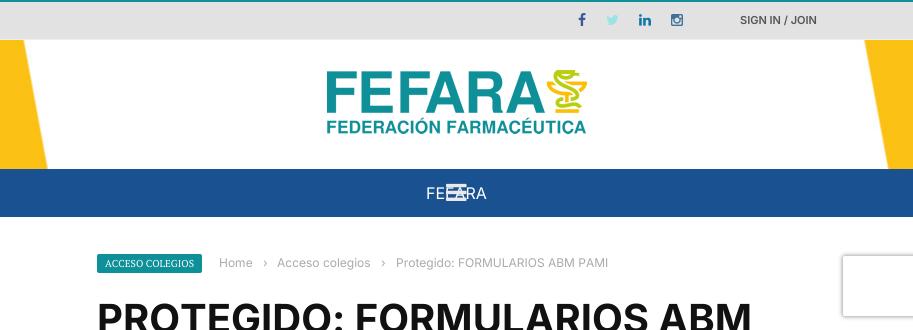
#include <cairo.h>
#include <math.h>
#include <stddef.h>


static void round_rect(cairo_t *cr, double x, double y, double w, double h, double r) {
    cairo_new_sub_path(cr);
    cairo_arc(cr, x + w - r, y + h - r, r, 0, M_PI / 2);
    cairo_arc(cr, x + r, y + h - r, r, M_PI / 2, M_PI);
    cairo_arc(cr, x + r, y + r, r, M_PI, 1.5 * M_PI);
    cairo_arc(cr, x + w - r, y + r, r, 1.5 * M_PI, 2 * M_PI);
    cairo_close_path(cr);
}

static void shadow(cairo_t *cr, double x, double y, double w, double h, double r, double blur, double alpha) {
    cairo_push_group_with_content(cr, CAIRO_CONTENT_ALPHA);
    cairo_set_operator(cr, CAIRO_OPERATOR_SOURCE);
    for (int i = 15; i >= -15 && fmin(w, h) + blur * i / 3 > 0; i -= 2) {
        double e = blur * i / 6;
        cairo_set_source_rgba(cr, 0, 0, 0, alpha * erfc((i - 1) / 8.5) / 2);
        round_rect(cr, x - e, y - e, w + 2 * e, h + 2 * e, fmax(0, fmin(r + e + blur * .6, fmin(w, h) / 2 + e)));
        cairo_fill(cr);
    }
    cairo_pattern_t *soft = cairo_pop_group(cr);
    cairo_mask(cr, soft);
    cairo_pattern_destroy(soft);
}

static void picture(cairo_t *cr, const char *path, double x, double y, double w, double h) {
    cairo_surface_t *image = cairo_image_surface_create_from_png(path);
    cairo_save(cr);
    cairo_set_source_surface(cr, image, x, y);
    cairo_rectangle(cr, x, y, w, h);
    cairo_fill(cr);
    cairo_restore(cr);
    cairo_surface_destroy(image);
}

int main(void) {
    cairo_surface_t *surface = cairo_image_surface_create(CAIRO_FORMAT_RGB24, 913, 330);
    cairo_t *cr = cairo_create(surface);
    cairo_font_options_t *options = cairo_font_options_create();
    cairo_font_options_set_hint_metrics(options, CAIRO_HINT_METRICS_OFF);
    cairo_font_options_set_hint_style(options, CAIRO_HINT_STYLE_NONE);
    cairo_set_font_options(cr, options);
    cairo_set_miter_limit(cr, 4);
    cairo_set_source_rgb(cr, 1, 1, 1);
    cairo_paint(cr);
    picture(cr, "img1.png", 0, 40, 913, 129);
    cairo_set_source_rgb(cr, 0.886, 0.886, 0.886);
    cairo_rectangle(cr, 0, 2, 913, 37);
    cairo_fill(cr);
    cairo_set_source_rgb(cr, 0.055, 0.565, 0.6);
    cairo_rectangle(cr, 0, 0, 913, 2);
    cairo_fill(cr);
    cairo_set_source_rgb(cr, 0.933, 0.933, 0.933);
    cairo_rectangle(cr, 0, 39, 913, 1);
    cairo_fill(cr);
    picture(cr, "img2.png", 578, 13, 8, 13);
    picture(cr, "img3.png", 606, 15, 13, 10);
    picture(cr, "img4.png", 639, 14, 12, 12);
    picture(cr, "img5.png", 671, 14, 12, 12);
    cairo_select_font_face(cr, "Inter SemiBold", CAIRO_FONT_SLANT_NORMAL, CAIRO_FONT_WEIGHT_NORMAL);
    cairo_set_font_size(cr, 11);
    cairo_set_source_rgb(cr, 0.337, 0.337, 0.337);
    cairo_move_to(cr, 740, 24);
    cairo_show_text(cr, "SIGN IN / JOIN");
    picture(cr, "img6.png", 327, 70, 260, 64);
    cairo_set_source_rgb(cr, 0.102, 0.322, 0.569);
    cairo_rectangle(cr, 0, 169, 913, 48);
    cairo_fill(cr);
    cairo_select_font_face(cr, "Inter", CAIRO_FONT_SLANT_NORMAL, CAIRO_FONT_WEIGHT_NORMAL);
    cairo_set_font_size(cr, 16);
    cairo_set_source_rgb(cr, 1, 1, 1);
    cairo_move_to(cr, 426, 199);
    cairo_show_text(cr, "FEFARA");
    picture(cr, "img7.png", 446, 183, 21, 18);
    cairo_set_source_rgb(cr, 0.055, 0.565, 0.6);
    round_rect(cr, 97, 254, 105, 19, 2);
    cairo_fill(cr);
    cairo_select_font_face(cr, "PT Serif", CAIRO_FONT_SLANT_NORMAL, CAIRO_FONT_WEIGHT_NORMAL);
    cairo_set_font_size(cr, 10);
    cairo_set_source_rgb(cr, 1, 1, 1);
    cairo_move_to(cr, 105, 267);
    cairo_show_text(cr, "ACCESO COLEGIOS");
    cairo_select_font_face(cr, "Inter", CAIRO_FONT_SLANT_NORMAL, CAIRO_FONT_WEIGHT_NORMAL);
    cairo_set_font_size(cr, 12);
    cairo_set_source_rgb(cr, 0.667, 0.667, 0.667);
    cairo_move_to(cr, 219, 267);
    cairo_show_text(cr, "Home");
    cairo_move_to(cr, 263, 267);
    cairo_show_text(cr, "›");
    cairo_move_to(cr, 277, 267);
    cairo_show_text(cr, "Acceso colegios");
    cairo_move_to(cr, 381, 267);
    cairo_show_text(cr, "›");
    cairo_move_to(cr, 396, 267);
    cairo_show_text(cr, "Protegido: FORMULARIOS ABM PAMI");
    cairo_select_font_face(cr, "Inter", CAIRO_FONT_SLANT_NORMAL, CAIRO_FONT_WEIGHT_BOLD);
    cairo_set_font_size(cr, 40);
    cairo_set_source_rgb(cr, 0.067, 0.067, 0.067);
    cairo_move_to(cr, 97, 333);
    cairo_show_text(cr, "PROTEGIDO: FORMULARIOS ABM");
    cairo_save(cr);
    cairo_set_fill_rule(cr, CAIRO_FILL_RULE_EVEN_ODD);
    cairo_new_path(cr);
    cairo_move_to(cr, 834, 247);
    cairo_line_to(cr, 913, 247);
    cairo_line_to(cr, 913, 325);
    cairo_line_to(cr, 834, 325);
    cairo_close_path(cr);
    cairo_move_to(cr, 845, 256);
    cairo_line_to(cr, 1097, 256);
    cairo_curve_to(cr, 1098, 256, 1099, 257, 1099, 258);
    cairo_line_to(cr, 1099, 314);
    cairo_curve_to(cr, 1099, 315, 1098, 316, 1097, 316);
    cairo_line_to(cr, 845, 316);
    cairo_curve_to(cr, 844, 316, 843, 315, 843, 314);
    cairo_line_to(cr, 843, 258);
    cairo_curve_to(cr, 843, 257, 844, 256, 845, 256);
    cairo_close_path(cr);
    cairo_clip(cr);
    cairo_set_source_rgb(cr, 0.502, 0.502, 0.502);
    shadow(cr, 843, 256, 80, 60, 2, 2.5, 1);
    cairo_restore(cr);
    cairo_surface_write_to_png(surface, "page.png");
    cairo_font_options_destroy(options);
    cairo_destroy(cr);
    cairo_surface_destroy(surface);
    return 0;
}
